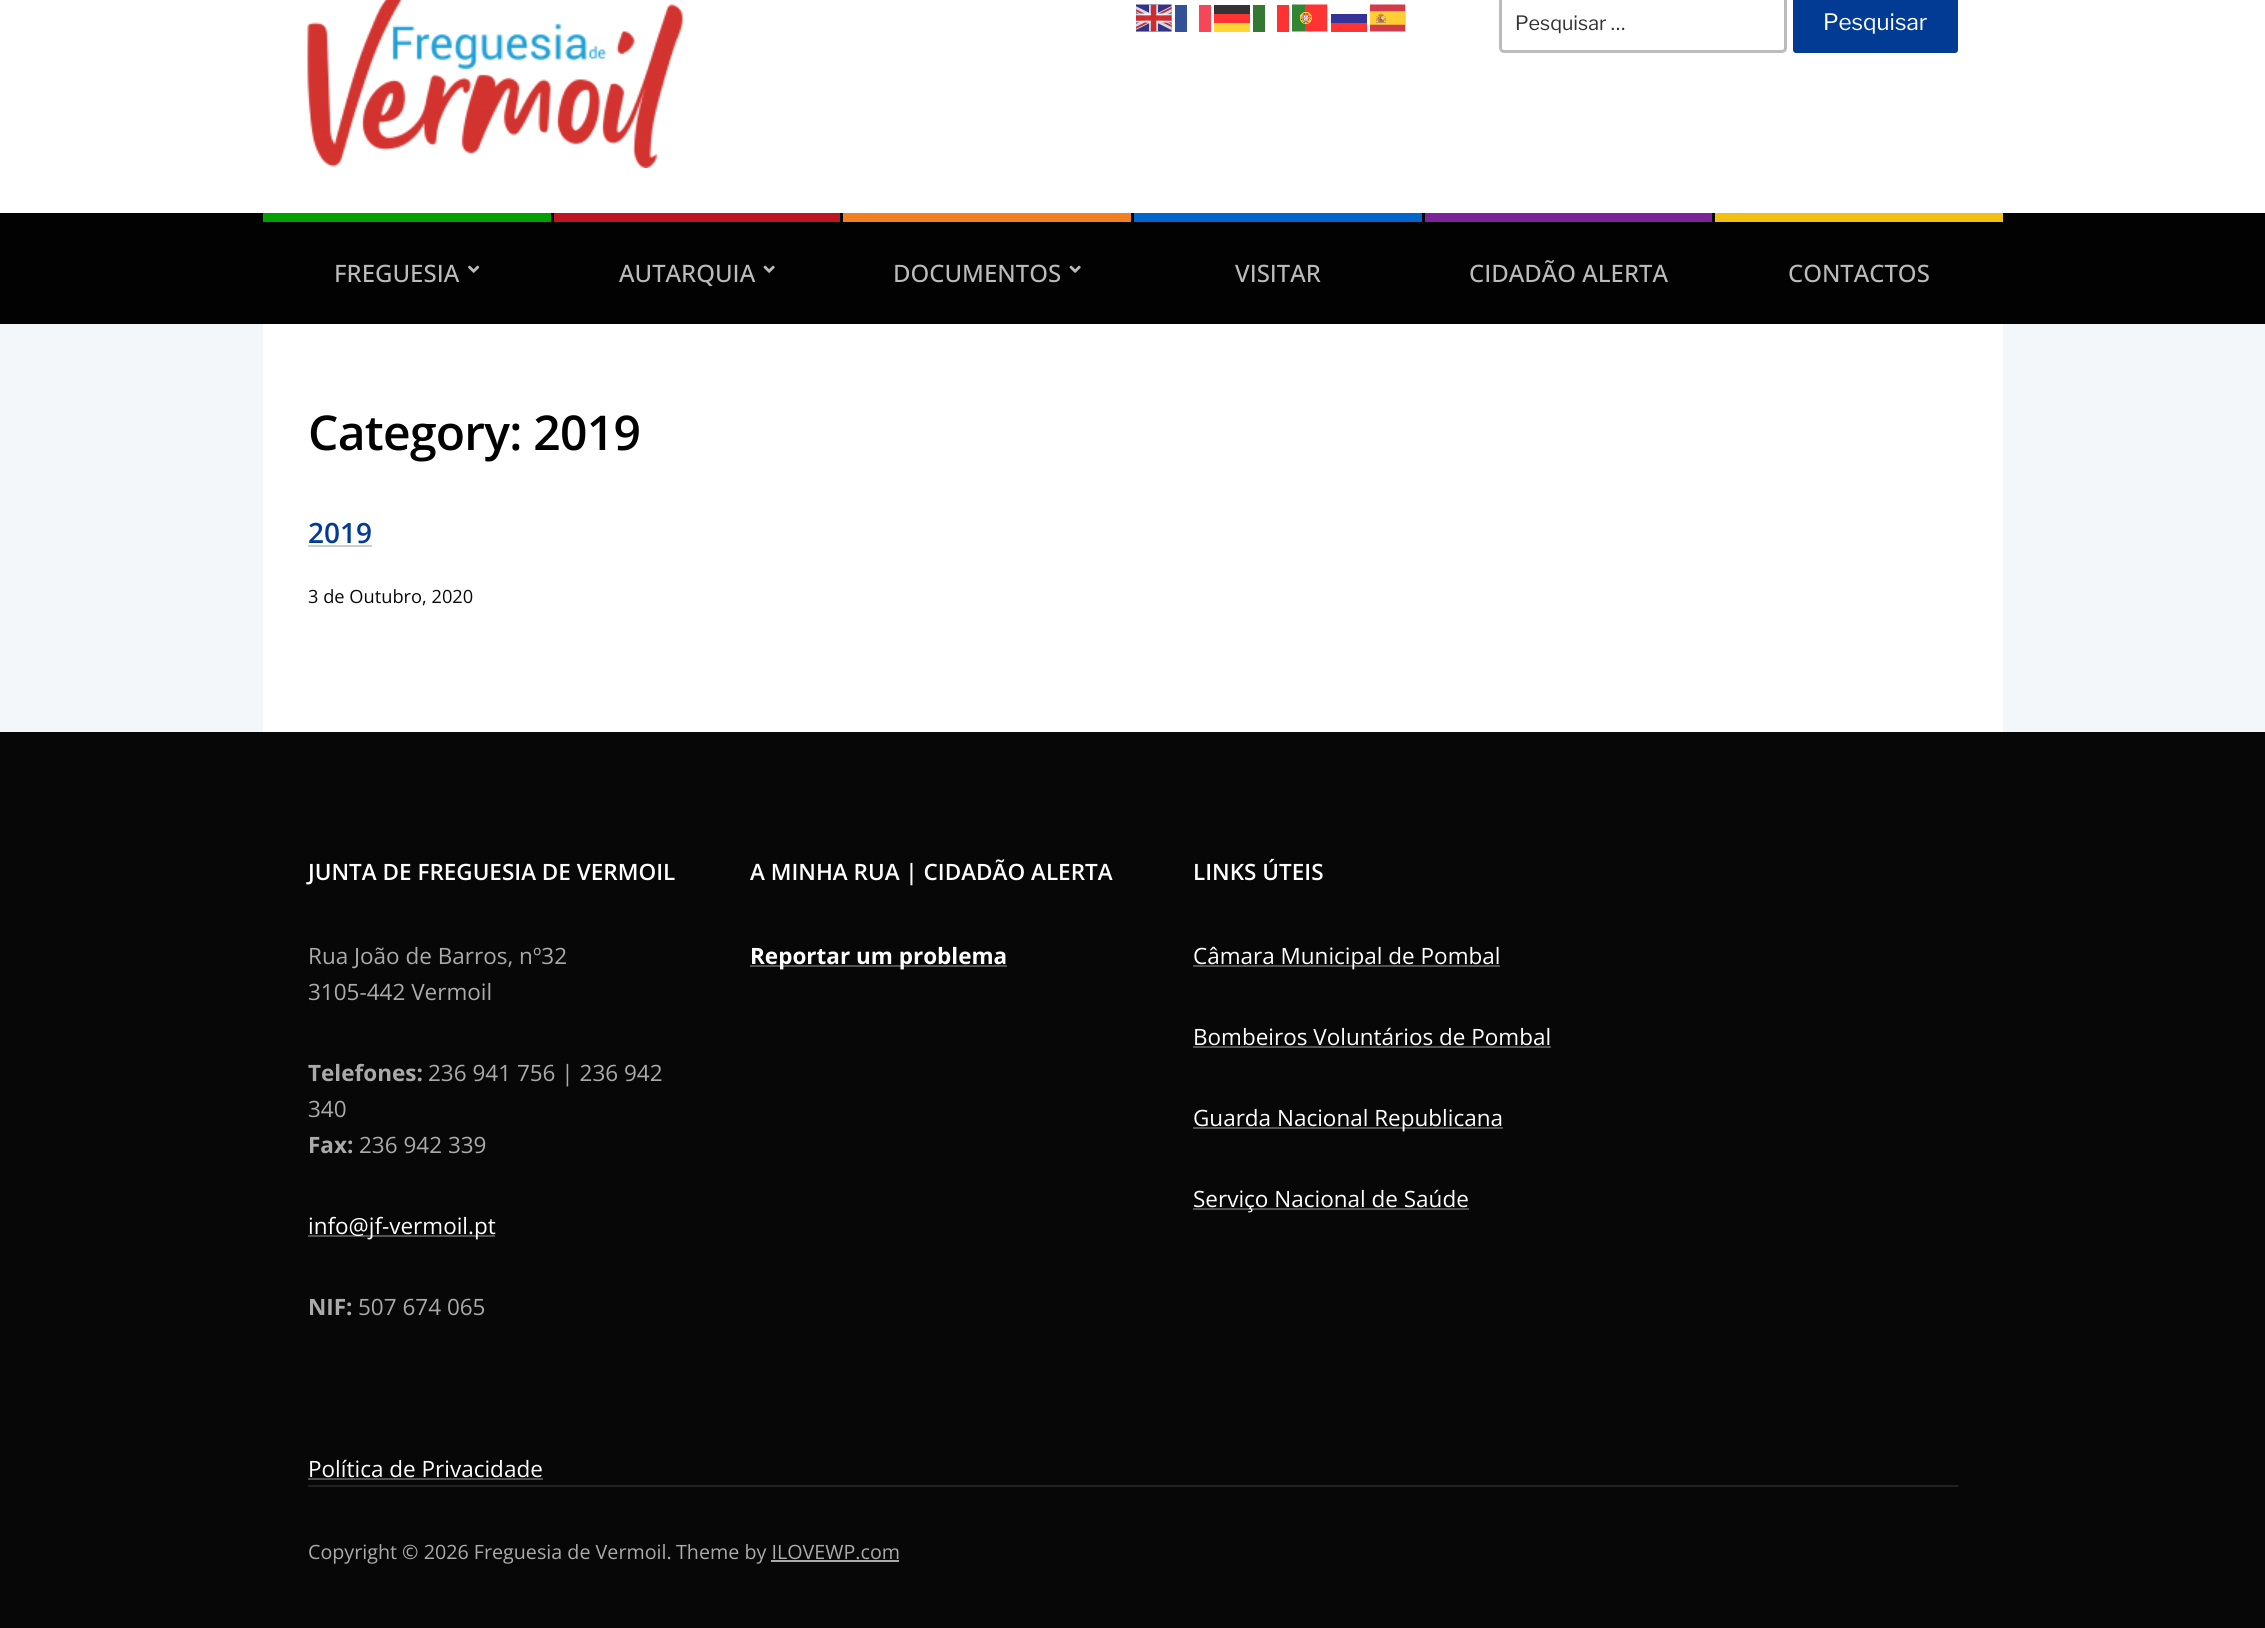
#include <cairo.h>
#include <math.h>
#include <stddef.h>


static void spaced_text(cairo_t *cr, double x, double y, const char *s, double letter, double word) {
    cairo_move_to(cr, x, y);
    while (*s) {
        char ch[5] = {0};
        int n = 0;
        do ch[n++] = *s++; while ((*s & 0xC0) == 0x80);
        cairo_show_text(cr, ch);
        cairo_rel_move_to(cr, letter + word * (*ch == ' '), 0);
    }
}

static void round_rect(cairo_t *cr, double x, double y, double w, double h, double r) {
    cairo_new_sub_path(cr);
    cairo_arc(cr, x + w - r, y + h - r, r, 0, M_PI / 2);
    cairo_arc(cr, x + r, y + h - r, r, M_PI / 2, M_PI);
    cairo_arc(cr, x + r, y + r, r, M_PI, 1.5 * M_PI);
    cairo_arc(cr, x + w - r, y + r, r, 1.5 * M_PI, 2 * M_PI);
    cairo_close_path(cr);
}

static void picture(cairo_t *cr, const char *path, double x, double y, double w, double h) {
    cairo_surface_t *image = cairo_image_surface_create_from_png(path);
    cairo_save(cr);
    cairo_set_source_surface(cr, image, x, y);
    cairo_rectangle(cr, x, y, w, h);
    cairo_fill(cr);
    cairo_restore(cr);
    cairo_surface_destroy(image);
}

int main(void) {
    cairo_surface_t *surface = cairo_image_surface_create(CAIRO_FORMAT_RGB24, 2265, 1628);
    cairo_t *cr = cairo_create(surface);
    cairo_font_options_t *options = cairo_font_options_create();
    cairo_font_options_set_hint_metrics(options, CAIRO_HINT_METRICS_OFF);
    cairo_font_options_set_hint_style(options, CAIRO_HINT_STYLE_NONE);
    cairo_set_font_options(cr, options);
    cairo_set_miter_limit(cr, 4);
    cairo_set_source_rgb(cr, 0.957, 0.965, 0.973);
    cairo_paint(cr);
    cairo_set_source_rgb(cr, 1, 1, 1);
    cairo_rectangle(cr, 0, 0, 2265, 213);
    cairo_fill(cr);
    picture(cr, "img1.png", 307, 0, 376, 168);
    picture(cr, "img2.png", 1136, 4, 36, 28);
    cairo_set_source_rgb(cr, 0.2, 0.318, 0.6);
    cairo_rectangle(cr, 1175, 5, 12, 27);
    cairo_fill(cr);
    cairo_set_source_rgb(cr, 0.961, 0.275, 0.349);
    cairo_rectangle(cr, 1199, 5, 12, 27);
    cairo_fill(cr);
    cairo_set_source_rgb(cr, 0.2, 0.2, 0.2);
    cairo_rectangle(cr, 1214, 5, 36, 9);
    cairo_fill(cr);
    cairo_set_source_rgb(cr, 0.2, 0.475, 0.2);
    cairo_rectangle(cr, 1253, 5, 12, 27);
    cairo_fill(cr);
    cairo_set_source_rgb(cr, 0.992, 0.2, 0.2);
    cairo_rectangle(cr, 1277, 5, 12, 27);
    cairo_fill(cr);
    picture(cr, "img3.png", 1292, 4, 36, 28);
    picture(cr, "img4.png", 1370, 4, 36, 28);
    cairo_set_source_rgb(cr, 1, 0.2, 0.2);
    cairo_rectangle(cr, 1214, 14, 36, 9);
    cairo_fill(cr);
    cairo_set_source_rgb(cr, 0.204, 0.204, 0.596);
    cairo_rectangle(cr, 1331, 14, 36, 9);
    cairo_fill(cr);
    cairo_set_source_rgb(cr, 1, 0.839, 0.2);
    cairo_rectangle(cr, 1214, 23, 36, 9);
    cairo_fill(cr);
    cairo_set_source_rgb(cr, 0.996, 0.204, 0.204);
    cairo_rectangle(cr, 1331, 23, 36, 9);
    cairo_fill(cr);
    round_rect(cr, 1500.5, -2.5, 285, 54, 3.5);
    cairo_set_source_rgb(cr, 0.733, 0.733, 0.733);
    cairo_set_line_width(cr, 3);
    cairo_stroke(cr);
    cairo_select_font_face(cr, "Libre Franklin", CAIRO_FONT_SLANT_NORMAL, CAIRO_FONT_WEIGHT_NORMAL);
    cairo_set_font_size(cr, 19.7);
    cairo_set_source_rgb(cr, 0.2, 0.2, 0.2);
    cairo_move_to(cr, 1515, 30);
    cairo_show_text(cr, "Pesquisar …");
    cairo_set_source_rgb(cr, 0.004, 0.231, 0.576);
    round_rect(cr, 1793, -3, 165, 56, 3);
    cairo_fill(cr);
    cairo_set_font_size(cr, 22.5);
    cairo_set_source_rgb(cr, 1, 1, 1);
    cairo_move_to(cr, 1823, 30);
    cairo_show_text(cr, "Pesquisar");
    cairo_set_source_rgb(cr, 0.008, 0.008, 0.008);
    cairo_rectangle(cr, 0, 213, 2265, 111);
    cairo_fill(cr);
    cairo_set_source_rgb(cr, 0, 0.627, 0);
    cairo_rectangle(cr, 263, 213, 288, 9);
    cairo_fill(cr);
    cairo_select_font_face(cr, "Open Sans Medium", CAIRO_FONT_SLANT_NORMAL, CAIRO_FONT_WEIGHT_NORMAL);
    cairo_set_font_size(cr, 24);
    cairo_set_source_rgb(cr, 0.733, 0.733, 0.733);
    cairo_move_to(cr, 334, 282);
    cairo_show_text(cr, "FREGUESIA");
    picture(cr, "img5.png", 468, 265, 12, 8);
    cairo_set_source_rgb(cr, 0.749, 0.082, 0.133);
    cairo_rectangle(cr, 554, 213, 286, 9);
    cairo_fill(cr);
    cairo_set_source_rgb(cr, 0.733, 0.733, 0.733);
    cairo_move_to(cr, 619, 282);
    cairo_show_text(cr, "AUTARQUIA");
    picture(cr, "img6.png", 763, 265, 12, 8);
    cairo_set_source_rgb(cr, 0.941, 0.502, 0.125);
    cairo_rectangle(cr, 843, 213, 288, 9);
    cairo_fill(cr);
    cairo_set_source_rgb(cr, 0.733, 0.733, 0.733);
    cairo_move_to(cr, 893, 282);
    cairo_show_text(cr, "DOCUMENTOS");
    picture(cr, "img6.png", 1069, 265, 12, 8);
    cairo_set_source_rgb(cr, 0, 0.4, 0.8);
    cairo_rectangle(cr, 1134, 213, 288, 9);
    cairo_fill(cr);
    cairo_set_source_rgb(cr, 0.733, 0.733, 0.733);
    cairo_move_to(cr, 1235, 282);
    cairo_show_text(cr, "VISITAR");
    cairo_set_source_rgb(cr, 0.482, 0.137, 0.596);
    cairo_rectangle(cr, 1425, 213, 287, 9);
    cairo_fill(cr);
    cairo_set_source_rgb(cr, 0.733, 0.733, 0.733);
    cairo_move_to(cr, 1469, 282);
    cairo_show_text(cr, "CIDADÃO ALERTA");
    cairo_set_source_rgb(cr, 0.941, 0.753, 0.063);
    cairo_rectangle(cr, 1715, 213, 288, 9);
    cairo_fill(cr);
    cairo_set_source_rgb(cr, 0.733, 0.733, 0.733);
    cairo_move_to(cr, 1788, 282);
    cairo_show_text(cr, "CONTACTOS");
    cairo_set_source_rgb(cr, 1, 1, 1);
    cairo_rectangle(cr, 263, 324, 1740, 408);
    cairo_fill(cr);
    cairo_select_font_face(cr, "Open Sans SemiBold", CAIRO_FONT_SLANT_NORMAL, CAIRO_FONT_WEIGHT_NORMAL);
    cairo_set_font_size(cr, 48);
    cairo_set_source_rgb(cr, 0, 0, 0);
    spaced_text(cr, 308, 450, "Category: 2019", -0.75, 0);
    cairo_set_font_size(cr, 28);
    cairo_set_source_rgb(cr, 0.004, 0.231, 0.576);
    cairo_move_to(cr, 308, 543);
    cairo_show_text(cr, "2019");
    cairo_set_source_rgb(cr, 0.8, 0.8, 0.8);
    cairo_rectangle(cr, 308, 545, 64, 2);
    cairo_fill(cr);
    cairo_select_font_face(cr, "Open Sans", CAIRO_FONT_SLANT_NORMAL, CAIRO_FONT_WEIGHT_NORMAL);
    cairo_set_font_size(cr, 18.25);
    cairo_set_source_rgb(cr, 0.039, 0.039, 0.039);
    cairo_move_to(cr, 308, 603);
    cairo_show_text(cr, "3 de Outubro, 2020");
    cairo_set_source_rgb(cr, 0.031, 0.031, 0.031);
    cairo_rectangle(cr, 0, 732, 2265, 896);
    cairo_fill(cr);
    cairo_select_font_face(cr, "Open Sans SemiBold", CAIRO_FONT_SLANT_NORMAL, CAIRO_FONT_WEIGHT_NORMAL);
    cairo_set_font_size(cr, 22.5);
    cairo_set_source_rgb(cr, 1, 1, 1);
    cairo_move_to(cr, 308, 880);
    cairo_show_text(cr, "JUNTA DE FREGUESIA DE VERMOIL");
    cairo_select_font_face(cr, "Open Sans", CAIRO_FONT_SLANT_NORMAL, CAIRO_FONT_WEIGHT_NORMAL);
    cairo_set_source_rgb(cr, 0.667, 0.667, 0.667);
    cairo_move_to(cr, 308, 964);
    cairo_show_text(cr, "Rua João de Barros, nº32");
    cairo_move_to(cr, 308, 1000);
    cairo_show_text(cr, "3105-442 Vermoil");
    cairo_select_font_face(cr, "Open Sans", CAIRO_FONT_SLANT_NORMAL, CAIRO_FONT_WEIGHT_BOLD);
    cairo_move_to(cr, 308, 1081);
    cairo_show_text(cr, "Telefones:");
    cairo_select_font_face(cr, "Open Sans", CAIRO_FONT_SLANT_NORMAL, CAIRO_FONT_WEIGHT_NORMAL);
    cairo_move_to(cr, 428, 1081);
    cairo_show_text(cr, "236 941 756 | 236 942");
    cairo_move_to(cr, 308, 1117);
    cairo_show_text(cr, "340");
    cairo_select_font_face(cr, "Open Sans", CAIRO_FONT_SLANT_NORMAL, CAIRO_FONT_WEIGHT_BOLD);
    cairo_move_to(cr, 308, 1153);
    cairo_show_text(cr, "Fax:");
    cairo_select_font_face(cr, "Open Sans", CAIRO_FONT_SLANT_NORMAL, CAIRO_FONT_WEIGHT_NORMAL);
    cairo_move_to(cr, 359, 1153);
    cairo_show_text(cr, "236 942 339");
    cairo_set_source_rgb(cr, 0.322, 0.322, 0.322);
    cairo_rectangle(cr, 308, 1235, 187, 2);
    cairo_fill(cr);
    cairo_set_source_rgb(cr, 1, 1, 1);
    cairo_move_to(cr, 308, 1234);
    cairo_show_text(cr, "info@jf-vermoil.pt");
    cairo_select_font_face(cr, "Open Sans", CAIRO_FONT_SLANT_NORMAL, CAIRO_FONT_WEIGHT_BOLD);
    cairo_set_source_rgb(cr, 0.667, 0.667, 0.667);
    cairo_move_to(cr, 308, 1315);
    cairo_show_text(cr, "NIF:");
    cairo_select_font_face(cr, "Open Sans", CAIRO_FONT_SLANT_NORMAL, CAIRO_FONT_WEIGHT_NORMAL);
    cairo_move_to(cr, 358, 1315);
    cairo_show_text(cr, "507 674 065");
    cairo_set_source_rgb(cr, 1, 1, 1);
    cairo_move_to(cr, 308, 1477);
    cairo_show_text(cr, "Política de Privacidade");
    cairo_set_source_rgb(cr, 0.322, 0.322, 0.322);
    cairo_rectangle(cr, 308, 1478, 235, 2);
    cairo_fill(cr);
    cairo_select_font_face(cr, "Open Sans SemiBold", CAIRO_FONT_SLANT_NORMAL, CAIRO_FONT_WEIGHT_NORMAL);
    cairo_set_source_rgb(cr, 1, 1, 1);
    cairo_move_to(cr, 750, 880);
    cairo_show_text(cr, "A MINHA RUA | CIDADÃO ALERTA");
    cairo_set_source_rgb(cr, 0.322, 0.322, 0.322);
    cairo_rectangle(cr, 750, 965, 257, 2);
    cairo_fill(cr);
    cairo_select_font_face(cr, "Open Sans", CAIRO_FONT_SLANT_NORMAL, CAIRO_FONT_WEIGHT_BOLD);
    cairo_set_source_rgb(cr, 1, 1, 1);
    cairo_move_to(cr, 750, 964);
    cairo_show_text(cr, "Reportar um problema");
    cairo_select_font_face(cr, "Open Sans SemiBold", CAIRO_FONT_SLANT_NORMAL, CAIRO_FONT_WEIGHT_NORMAL);
    cairo_move_to(cr, 1193, 880);
    cairo_show_text(cr, "LINKS ÚTEIS");
    cairo_set_source_rgb(cr, 0.322, 0.322, 0.322);
    cairo_rectangle(cr, 1193, 965, 307, 2);
    cairo_fill(cr);
    cairo_select_font_face(cr, "Open Sans", CAIRO_FONT_SLANT_NORMAL, CAIRO_FONT_WEIGHT_NORMAL);
    cairo_set_source_rgb(cr, 1, 1, 1);
    cairo_move_to(cr, 1193, 964);
    cairo_show_text(cr, "Câmara Municipal de Pombal");
    cairo_move_to(cr, 1193, 1045);
    cairo_show_text(cr, "Bombeiros Voluntários de Pombal");
    cairo_set_source_rgb(cr, 0.322, 0.322, 0.322);
    cairo_rectangle(cr, 1193, 1046, 358, 2);
    cairo_fill(cr);
    cairo_rectangle(cr, 1193, 1127, 310, 2);
    cairo_fill(cr);
    cairo_set_source_rgb(cr, 1, 1, 1);
    cairo_move_to(cr, 1193, 1126);
    cairo_show_text(cr, "Guarda Nacional Republicana");
    cairo_set_source_rgb(cr, 0.322, 0.322, 0.322);
    cairo_rectangle(cr, 1193, 1208, 276, 2);
    cairo_fill(cr);
    cairo_set_source_rgb(cr, 1, 1, 1);
    cairo_move_to(cr, 1193, 1207);
    cairo_show_text(cr, "Serviço Nacional de Saúde");
    cairo_set_source_rgb(cr, 0.133, 0.133, 0.133);
    cairo_rectangle(cr, 308, 1485, 1650, 2);
    cairo_fill(cr);
    cairo_set_font_size(cr, 19.7);
    cairo_set_source_rgb(cr, 0.667, 0.667, 0.667);
    cairo_move_to(cr, 308, 1559);
    cairo_show_text(cr, "Copyright © 2026 Freguesia de Vermoil.");
    cairo_move_to(cr, 676, 1559);
    cairo_show_text(cr, "Theme by ILOVEWP.com");
    cairo_rectangle(cr, 771, 1560, 128, 2);
    cairo_fill(cr);
    cairo_surface_write_to_png(surface, "page.png");
    cairo_font_options_destroy(options);
    cairo_destroy(cr);
    cairo_surface_destroy(surface);
    return 0;
}
